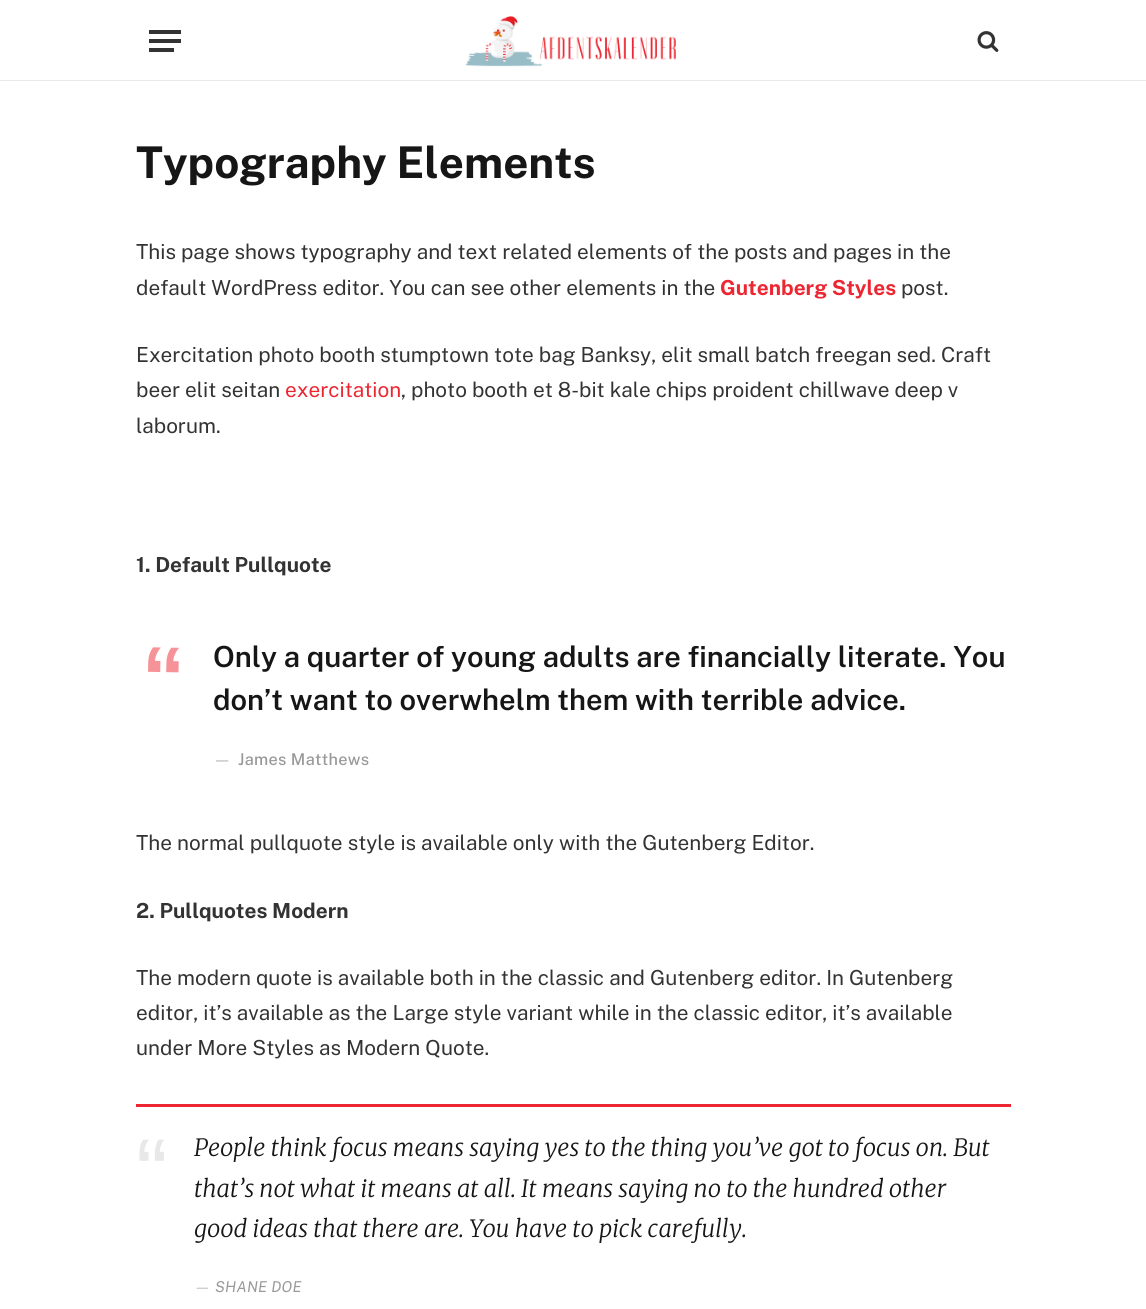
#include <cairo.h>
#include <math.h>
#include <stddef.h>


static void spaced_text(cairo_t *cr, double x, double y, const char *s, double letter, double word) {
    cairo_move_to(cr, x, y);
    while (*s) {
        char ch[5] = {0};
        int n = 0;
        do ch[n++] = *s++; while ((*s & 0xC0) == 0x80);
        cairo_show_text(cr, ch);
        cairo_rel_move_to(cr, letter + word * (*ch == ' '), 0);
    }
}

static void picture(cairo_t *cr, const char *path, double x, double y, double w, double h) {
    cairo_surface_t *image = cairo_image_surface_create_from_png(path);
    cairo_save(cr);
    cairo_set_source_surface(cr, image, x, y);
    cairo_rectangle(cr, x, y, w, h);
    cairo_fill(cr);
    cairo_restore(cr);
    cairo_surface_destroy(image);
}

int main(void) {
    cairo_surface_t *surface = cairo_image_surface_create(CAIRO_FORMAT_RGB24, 1146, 1309);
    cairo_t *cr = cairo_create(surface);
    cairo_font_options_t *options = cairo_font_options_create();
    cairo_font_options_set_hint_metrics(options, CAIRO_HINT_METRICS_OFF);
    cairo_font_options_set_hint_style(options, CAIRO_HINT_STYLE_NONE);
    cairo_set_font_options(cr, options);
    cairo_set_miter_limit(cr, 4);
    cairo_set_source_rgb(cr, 1, 1, 1);
    cairo_paint(cr);
    cairo_set_source_rgb(cr, 0.91, 0.91, 0.91);
    cairo_rectangle(cr, 0, 80, 1146, 1);
    cairo_fill(cr);
    cairo_set_source_rgb(cr, 0.2, 0.2, 0.2);
    cairo_rectangle(cr, 149, 48, 25, 4);
    cairo_fill(cr);
    cairo_rectangle(cr, 149, 30, 32, 4);
    cairo_fill(cr);
    cairo_rectangle(cr, 149, 39, 32, 4);
    cairo_fill(cr);
    picture(cr, "img1.png", 465, 16, 211, 51);
    picture(cr, "img2.png", 977, 31, 22, 21);
    cairo_select_font_face(cr, "Public Sans", CAIRO_FONT_SLANT_NORMAL, CAIRO_FONT_WEIGHT_BOLD);
    cairo_set_font_size(cr, 43.75);
    cairo_set_source_rgb(cr, 0.086, 0.086, 0.086);
    cairo_move_to(cr, 136, 178);
    cairo_show_text(cr, "Typography Elements");
    cairo_select_font_face(cr, "Public Sans", CAIRO_FONT_SLANT_NORMAL, CAIRO_FONT_WEIGHT_NORMAL);
    cairo_set_font_size(cr, 20.75);
    cairo_set_source_rgb(cr, 0.2, 0.2, 0.2);
    cairo_move_to(cr, 136, 259);
    cairo_show_text(cr, "This page shows typography and text related elements of the posts and pages in the");
    cairo_move_to(cr, 136, 295);
    cairo_show_text(cr, "default WordPress editor. You can see other elements in the");
    cairo_select_font_face(cr, "Public Sans", CAIRO_FONT_SLANT_NORMAL, CAIRO_FONT_WEIGHT_BOLD);
    cairo_set_source_rgb(cr, 0.922, 0.153, 0.196);
    cairo_move_to(cr, 720, 295);
    cairo_show_text(cr, "Gutenberg Styles");
    cairo_select_font_face(cr, "Public Sans", CAIRO_FONT_SLANT_NORMAL, CAIRO_FONT_WEIGHT_NORMAL);
    cairo_set_source_rgb(cr, 0.2, 0.2, 0.2);
    cairo_move_to(cr, 901, 295);
    cairo_show_text(cr, "post.");
    cairo_move_to(cr, 136, 362);
    cairo_show_text(cr, "Exercitation photo booth stumptown tote bag Banksy, elit small batch freegan sed. Craft");
    cairo_move_to(cr, 136, 397);
    cairo_show_text(cr, "beer elit seitan");
    cairo_set_source_rgb(cr, 0.922, 0.153, 0.196);
    cairo_move_to(cr, 285, 397);
    cairo_show_text(cr, "exercitation");
    cairo_set_source_rgb(cr, 0.2, 0.2, 0.2);
    cairo_move_to(cr, 401, 397);
    cairo_show_text(cr, ", photo booth et 8-bit kale chips proident chillwave deep v");
    cairo_move_to(cr, 136, 433);
    cairo_show_text(cr, "laborum.");
    cairo_select_font_face(cr, "Public Sans", CAIRO_FONT_SLANT_NORMAL, CAIRO_FONT_WEIGHT_BOLD);
    cairo_move_to(cr, 136, 572);
    cairo_show_text(cr, "1. Default Pullquote");
    cairo_select_font_face(cr, "Liberation Sans", CAIRO_FONT_SLANT_NORMAL, CAIRO_FONT_WEIGHT_BOLD);
    cairo_set_font_size(cr, 87);
    cairo_set_source_rgb(cr, 0.961, 0.576, 0.6);
    cairo_save(cr);
    cairo_translate(cr, 141, 707);
    cairo_rotate(cr, 1 * M_PI / 180);
    cairo_move_to(cr, 0, 0);
    cairo_show_text(cr, "“");
    cairo_restore(cr);
    cairo_select_font_face(cr, "Public Sans SemiBold", CAIRO_FONT_SLANT_NORMAL, CAIRO_FONT_WEIGHT_NORMAL);
    cairo_set_font_size(cr, 29.05);
    cairo_set_source_rgb(cr, 0.086, 0.086, 0.086);
    cairo_move_to(cr, 213, 667);
    cairo_show_text(cr, "Only a quarter of young adults are financially literate. You");
    cairo_move_to(cr, 213, 710);
    cairo_show_text(cr, "don’t want to overwhelm them with terrible advice.");
    cairo_select_font_face(cr, "Public Sans Medium", CAIRO_FONT_SLANT_NORMAL, CAIRO_FONT_WEIGHT_NORMAL);
    cairo_set_font_size(cr, 16.25);
    cairo_set_source_rgb(cr, 0.761, 0.761, 0.761);
    spaced_text(cr, 213, 765, "—", 0.3, 0);
    cairo_set_source_rgb(cr, 0.6, 0.6, 0.6);
    spaced_text(cr, 238, 765, "James Matthews", 0.3, 0);
    cairo_select_font_face(cr, "Public Sans", CAIRO_FONT_SLANT_NORMAL, CAIRO_FONT_WEIGHT_NORMAL);
    cairo_set_font_size(cr, 20.75);
    cairo_set_source_rgb(cr, 0.2, 0.2, 0.2);
    cairo_move_to(cr, 136, 850);
    cairo_show_text(cr, "The normal pullquote style is available only with the Gutenberg Editor.");
    cairo_select_font_face(cr, "Public Sans", CAIRO_FONT_SLANT_NORMAL, CAIRO_FONT_WEIGHT_BOLD);
    cairo_move_to(cr, 136, 918);
    cairo_show_text(cr, "2. Pullquotes Modern");
    cairo_select_font_face(cr, "Public Sans", CAIRO_FONT_SLANT_NORMAL, CAIRO_FONT_WEIGHT_NORMAL);
    cairo_move_to(cr, 136, 985);
    cairo_show_text(cr, "The modern quote is available both in the classic and Gutenberg editor. In Gutenberg");
    cairo_move_to(cr, 136, 1020);
    cairo_show_text(cr, "editor, it’s available as the Large style variant while in the classic editor, it’s available");
    cairo_move_to(cr, 136, 1055);
    cairo_show_text(cr, "under More Styles as Modern Quote.");
    cairo_set_source_rgb(cr, 0.922, 0.153, 0.196);
    cairo_rectangle(cr, 136, 1104, 875, 3);
    cairo_fill(cr);
    cairo_select_font_face(cr, "Liberation Sans", CAIRO_FONT_SLANT_NORMAL, CAIRO_FONT_WEIGHT_NORMAL);
    cairo_set_font_size(cr, 95);
    cairo_set_source_rgb(cr, 0.91, 0.91, 0.91);
    cairo_move_to(cr, 136, 1205);
    cairo_show_text(cr, "“");
    cairo_select_font_face(cr, "Merriweather Light", CAIRO_FONT_SLANT_ITALIC, CAIRO_FONT_WEIGHT_NORMAL);
    cairo_set_font_size(cr, 23.7);
    cairo_set_source_rgb(cr, 0.086, 0.086, 0.086);
    cairo_move_to(cr, 194, 1156);
    cairo_show_text(cr, "People think focus means saying yes to the thing you’ve got to focus on. But");
    cairo_move_to(cr, 194, 1197);
    cairo_show_text(cr, "that’s not what it means at all. It means saying no to the hundred other");
    cairo_move_to(cr, 194, 1237);
    cairo_show_text(cr, "good ideas that there are. You have to pick carefully.");
    cairo_select_font_face(cr, "Public Sans Thin", CAIRO_FONT_SLANT_ITALIC, CAIRO_FONT_WEIGHT_NORMAL);
    cairo_set_font_size(cr, 15);
    cairo_set_source_rgb(cr, 0.761, 0.761, 0.761);
    spaced_text(cr, 194, 1292, "—", 0.25, 0);
    cairo_set_source_rgb(cr, 0.6, 0.6, 0.6);
    spaced_text(cr, 215, 1292, "SHANE DOE", 0.25, 0);
    cairo_surface_write_to_png(surface, "page.png");
    cairo_font_options_destroy(options);
    cairo_destroy(cr);
    cairo_surface_destroy(surface);
    return 0;
}
